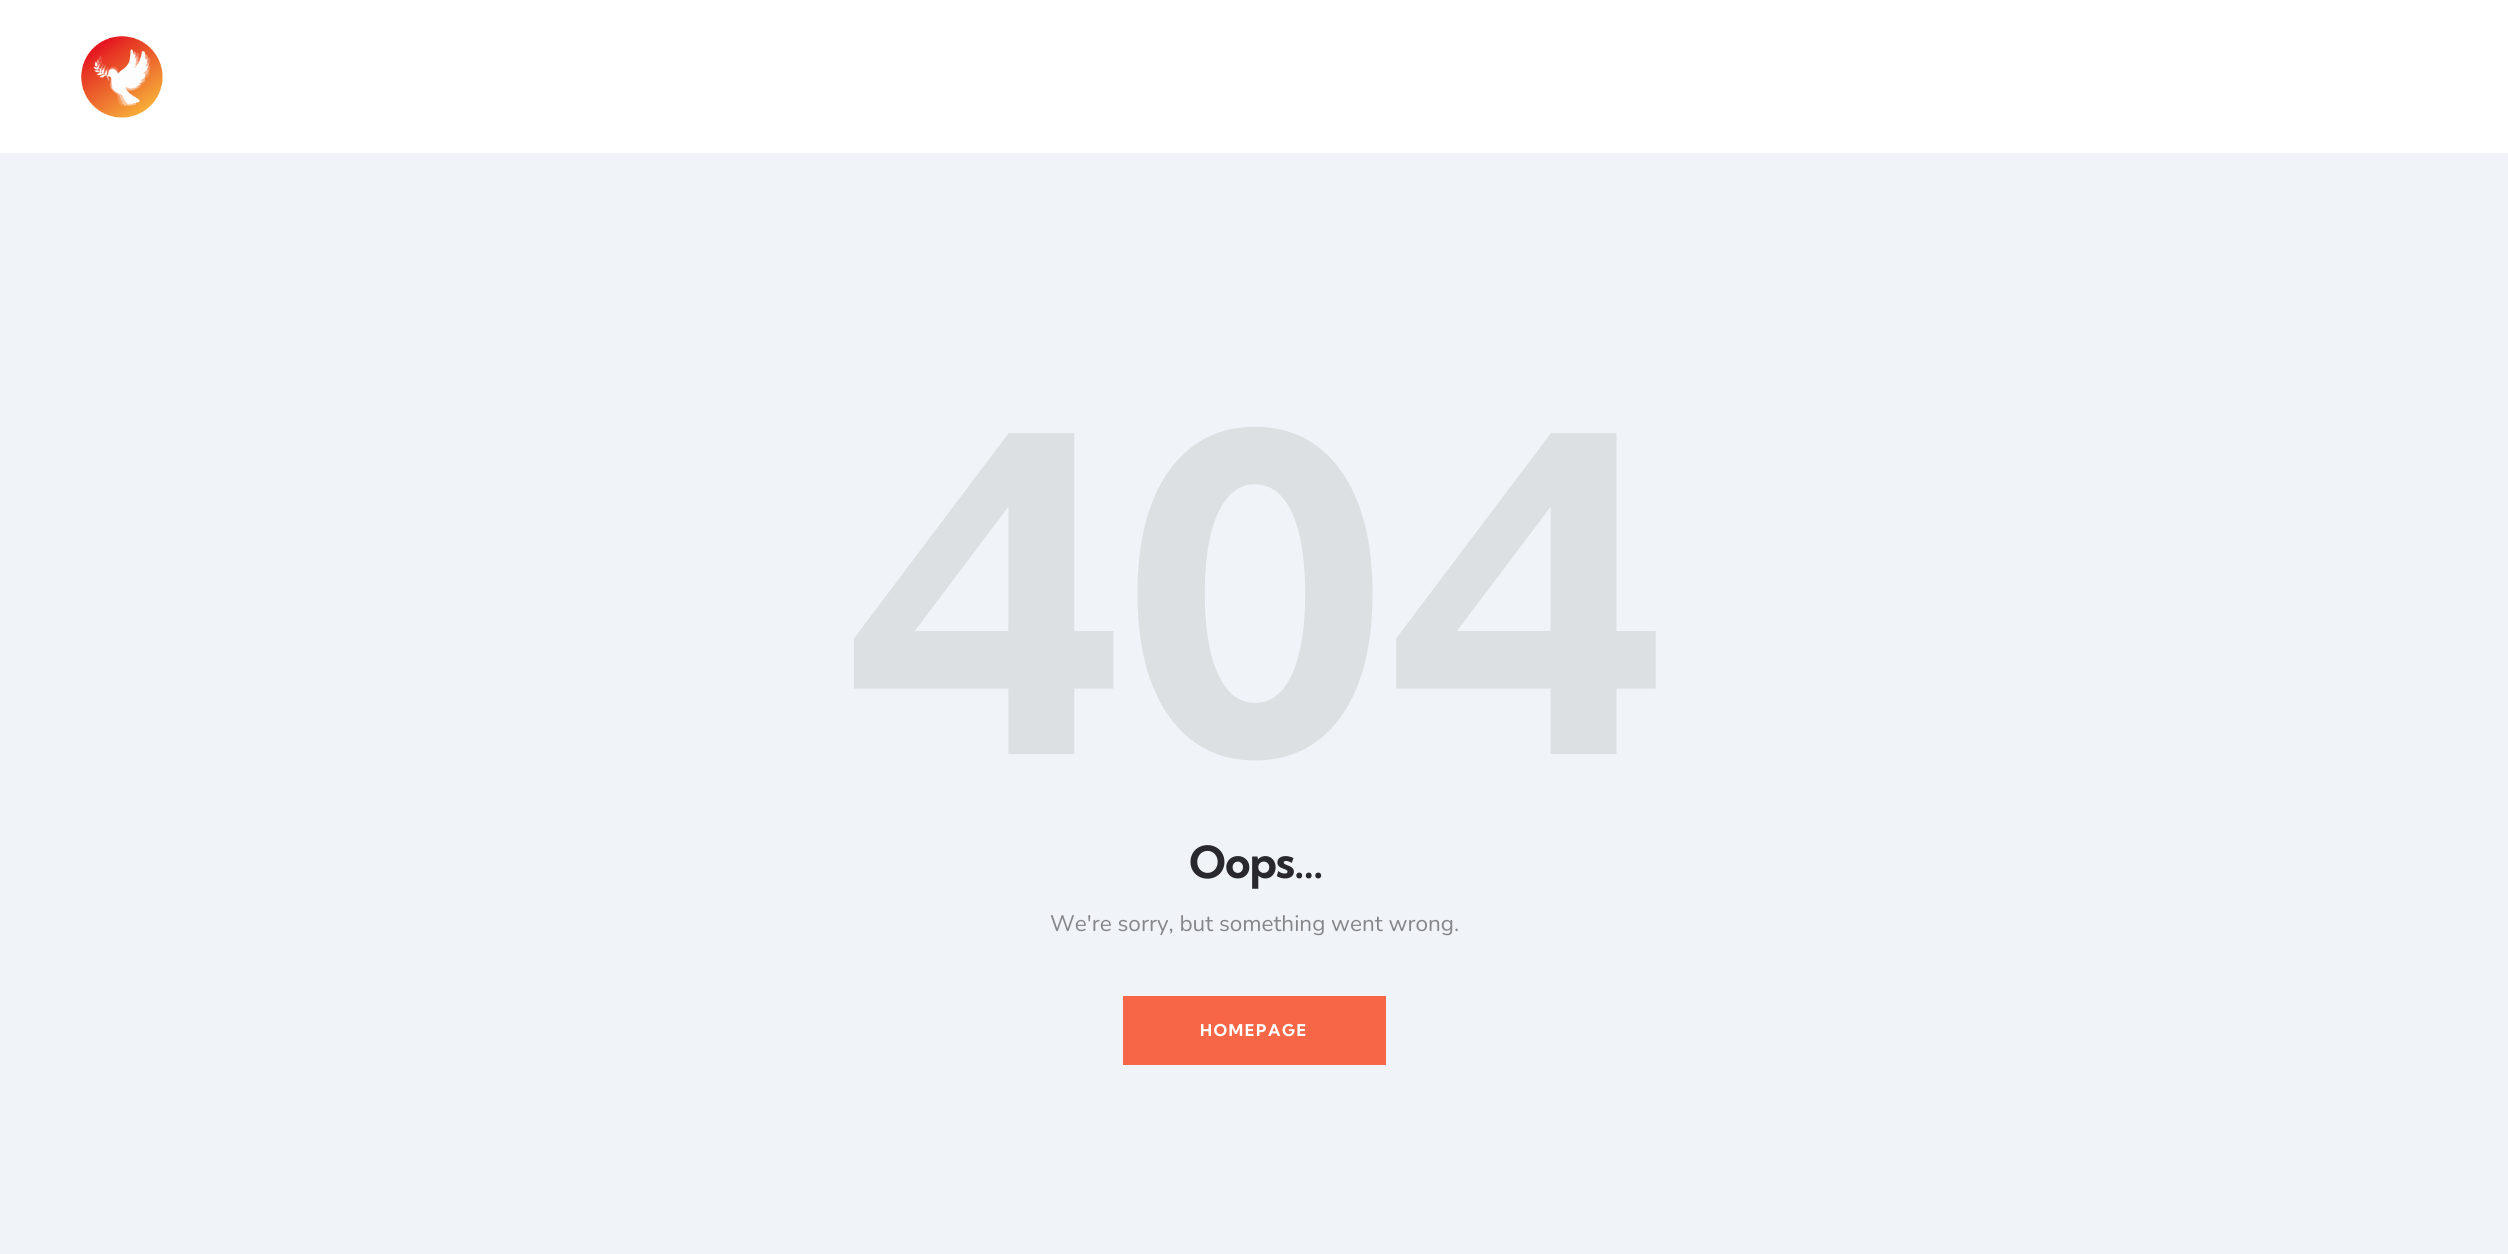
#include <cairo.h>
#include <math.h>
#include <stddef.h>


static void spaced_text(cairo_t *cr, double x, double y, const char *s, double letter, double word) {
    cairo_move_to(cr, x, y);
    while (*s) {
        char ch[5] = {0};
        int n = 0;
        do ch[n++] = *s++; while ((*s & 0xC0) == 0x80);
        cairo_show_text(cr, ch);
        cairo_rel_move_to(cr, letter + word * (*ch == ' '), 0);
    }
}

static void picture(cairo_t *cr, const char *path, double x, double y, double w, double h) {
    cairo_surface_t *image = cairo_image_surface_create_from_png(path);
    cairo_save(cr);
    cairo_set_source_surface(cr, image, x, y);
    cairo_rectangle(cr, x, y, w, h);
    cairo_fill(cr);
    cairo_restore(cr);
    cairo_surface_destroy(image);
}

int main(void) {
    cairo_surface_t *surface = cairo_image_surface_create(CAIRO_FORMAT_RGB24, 2508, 1254);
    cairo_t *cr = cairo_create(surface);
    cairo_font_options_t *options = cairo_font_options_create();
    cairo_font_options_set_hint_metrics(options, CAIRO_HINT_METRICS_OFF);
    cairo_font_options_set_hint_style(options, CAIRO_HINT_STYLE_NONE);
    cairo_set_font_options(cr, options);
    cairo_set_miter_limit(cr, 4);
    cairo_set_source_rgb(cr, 0.941, 0.957, 0.969);
    cairo_paint(cr);
    cairo_set_source_rgb(cr, 1, 1, 1);
    cairo_rectangle(cr, 0, 0, 2508, 153);
    cairo_fill(cr);
    picture(cr, "img1.png", 81, 36, 82, 82);
    cairo_select_font_face(cr, "Kumbh Sans", CAIRO_FONT_SLANT_NORMAL, CAIRO_FONT_WEIGHT_BOLD);
    cairo_set_font_size(cr, 438);
    cairo_set_source_rgb(cr, 0.863, 0.878, 0.89);
    cairo_move_to(cr, 845, 754);
    cairo_show_text(cr, "404");
    cairo_set_font_size(cr, 44);
    cairo_set_source_rgb(cr, 0.157, 0.157, 0.18);
    spaced_text(cr, 1189, 878, "Oops...", -1, 0);
    cairo_select_font_face(cr, "Nunito", CAIRO_FONT_SLANT_NORMAL, CAIRO_FONT_WEIGHT_NORMAL);
    cairo_set_font_size(cr, 22.5);
    cairo_set_source_rgb(cr, 0.522, 0.525, 0.537);
    cairo_move_to(cr, 1050, 931);
    cairo_show_text(cr, "We're sorry, but something went wrong.");
    cairo_set_source_rgb(cr, 0.965, 0.4, 0.275);
    cairo_rectangle(cr, 1123, 996, 263, 69);
    cairo_fill(cr);
    cairo_select_font_face(cr, "Kumbh Sans", CAIRO_FONT_SLANT_NORMAL, CAIRO_FONT_WEIGHT_BOLD);
    cairo_set_font_size(cr, 16.25);
    cairo_set_source_rgb(cr, 1, 1, 1);
    spaced_text(cr, 1200, 1036, "HOMEPAGE", 1.5, 0);
    cairo_surface_write_to_png(surface, "page.png");
    cairo_font_options_destroy(options);
    cairo_destroy(cr);
    cairo_surface_destroy(surface);
    return 0;
}
